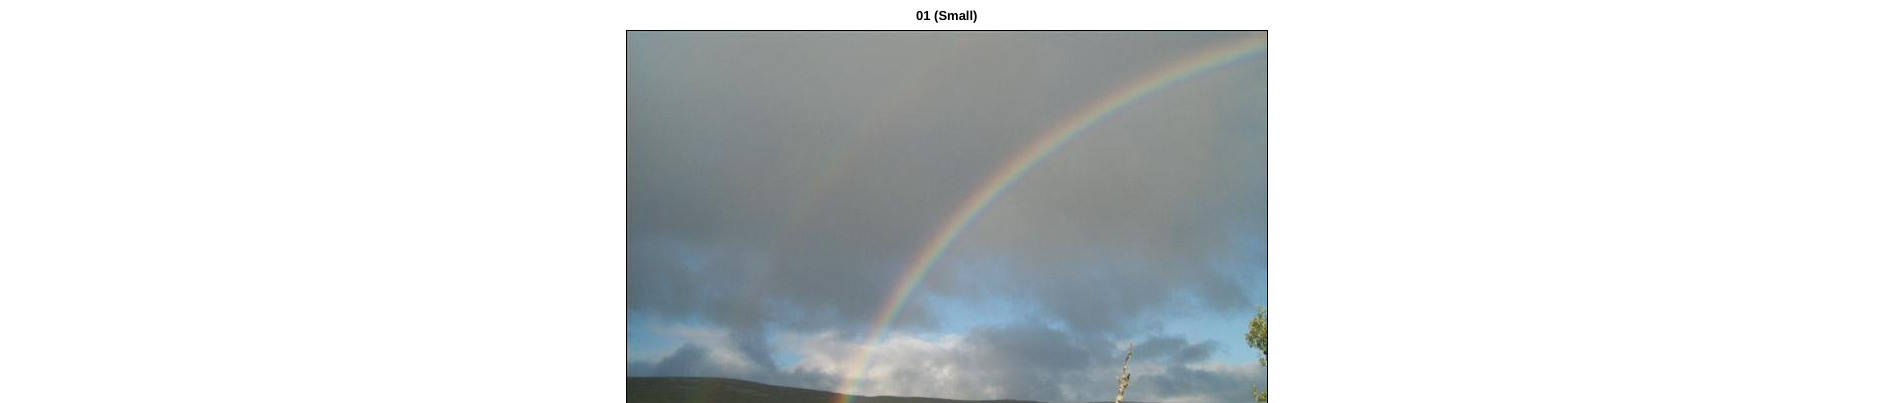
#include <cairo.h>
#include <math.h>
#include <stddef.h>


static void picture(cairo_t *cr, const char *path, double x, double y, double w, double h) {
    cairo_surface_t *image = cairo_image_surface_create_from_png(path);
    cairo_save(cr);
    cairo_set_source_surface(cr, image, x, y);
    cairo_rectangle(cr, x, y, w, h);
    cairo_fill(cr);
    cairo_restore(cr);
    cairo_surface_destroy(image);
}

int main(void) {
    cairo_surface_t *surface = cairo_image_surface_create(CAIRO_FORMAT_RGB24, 1893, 403);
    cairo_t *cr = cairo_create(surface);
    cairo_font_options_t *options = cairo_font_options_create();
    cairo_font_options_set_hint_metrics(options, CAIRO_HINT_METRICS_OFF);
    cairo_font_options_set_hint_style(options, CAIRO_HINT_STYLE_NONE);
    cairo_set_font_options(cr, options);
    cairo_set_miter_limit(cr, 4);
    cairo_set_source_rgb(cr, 1, 1, 1);
    cairo_paint(cr);
    cairo_select_font_face(cr, "Liberation Sans", CAIRO_FONT_SLANT_NORMAL, CAIRO_FONT_WEIGHT_BOLD);
    cairo_set_font_size(cr, 13);
    cairo_set_source_rgb(cr, 0, 0, 0);
    cairo_move_to(cr, 916, 20);
    cairo_show_text(cr, "01 (Small)");
    cairo_rectangle(cr, 626.5, 30.5, 641, 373);
    cairo_set_line_width(cr, 1);
    cairo_stroke(cr);
    picture(cr, "img1.png", 627, 31, 640, 372);
    cairo_surface_write_to_png(surface, "page.png");
    cairo_font_options_destroy(options);
    cairo_destroy(cr);
    cairo_surface_destroy(surface);
    return 0;
}
